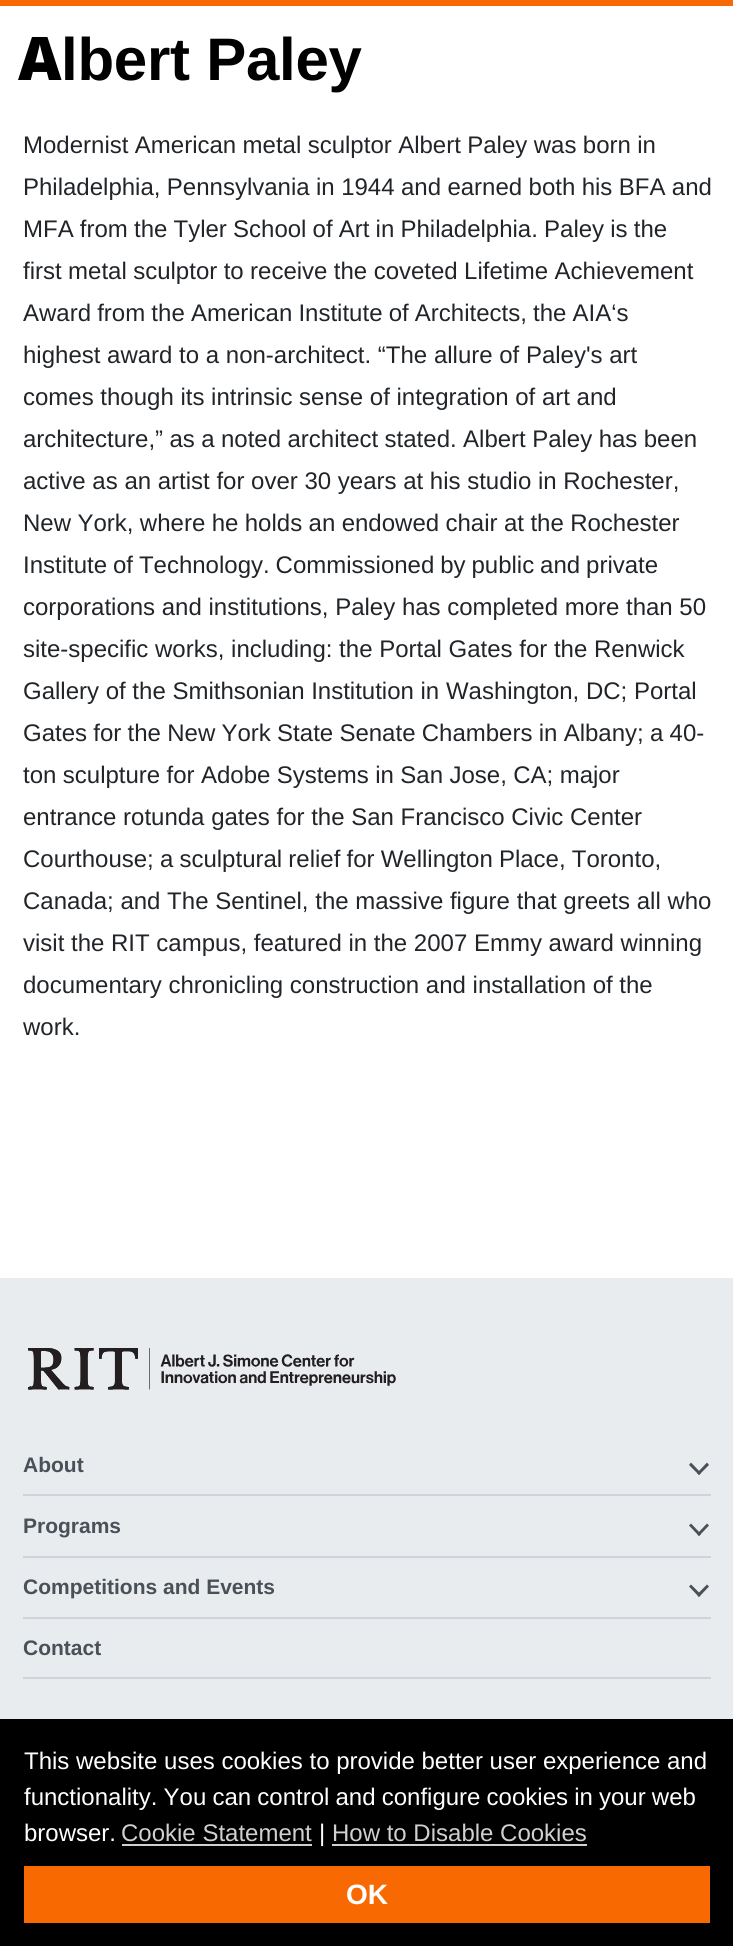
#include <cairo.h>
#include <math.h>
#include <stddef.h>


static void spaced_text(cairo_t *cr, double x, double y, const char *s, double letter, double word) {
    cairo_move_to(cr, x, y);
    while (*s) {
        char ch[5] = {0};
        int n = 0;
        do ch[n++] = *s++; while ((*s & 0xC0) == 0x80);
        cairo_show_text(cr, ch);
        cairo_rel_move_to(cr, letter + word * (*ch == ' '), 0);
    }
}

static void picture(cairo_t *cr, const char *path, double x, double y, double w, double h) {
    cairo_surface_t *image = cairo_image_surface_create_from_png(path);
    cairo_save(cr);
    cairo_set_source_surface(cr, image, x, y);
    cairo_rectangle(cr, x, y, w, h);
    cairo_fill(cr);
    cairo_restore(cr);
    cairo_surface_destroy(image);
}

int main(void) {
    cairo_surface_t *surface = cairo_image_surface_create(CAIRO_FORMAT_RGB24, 733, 1946);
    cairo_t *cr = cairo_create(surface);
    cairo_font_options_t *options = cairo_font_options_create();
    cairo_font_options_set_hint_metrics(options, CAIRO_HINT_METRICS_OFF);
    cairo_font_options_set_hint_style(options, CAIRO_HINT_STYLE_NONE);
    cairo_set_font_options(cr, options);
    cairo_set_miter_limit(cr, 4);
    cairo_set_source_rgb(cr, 1, 1, 1);
    cairo_paint(cr);
    cairo_set_source_rgb(cr, 0.969, 0.412, 0.008);
    cairo_rectangle(cr, 0, 0, 733, 6);
    cairo_fill(cr);
    cairo_select_font_face(cr, "Noto Sans Black", CAIRO_FONT_SLANT_NORMAL, CAIRO_FONT_WEIGHT_NORMAL);
    cairo_set_font_size(cr, 60);
    cairo_set_source_rgb(cr, 0, 0, 0);
    spaced_text(cr, 18, 80, "A", -0.25, 0);
    cairo_select_font_face(cr, "Liberation Sans", CAIRO_FONT_SLANT_NORMAL, CAIRO_FONT_WEIGHT_BOLD);
    spaced_text(cr, 61, 80, "lbert Paley", -0.25, 0);
    cairo_select_font_face(cr, "Liberation Sans", CAIRO_FONT_SLANT_NORMAL, CAIRO_FONT_WEIGHT_NORMAL);
    cairo_set_font_size(cr, 24);
    cairo_set_source_rgb(cr, 0.129, 0.145, 0.161);
    spaced_text(cr, 23, 153, "Modernist American metal sculptor Albert Paley was born in", 0, -0.25);
    spaced_text(cr, 23, 195, "Philadelphia, Pennsylvania in 1944 and earned both his BFA and", 0, -0.25);
    spaced_text(cr, 23, 237, "MFA from the Tyler School of Art in Philadelphia. Paley is the", 0, -0.5);
    spaced_text(cr, 23, 279, "first metal sculptor to receive the coveted Lifetime Achievement", 0, -0.25);
    spaced_text(cr, 23, 321, "Award from the American Institute of Architects, the AIA‘s", 0, -0.5);
    cairo_move_to(cr, 23, 363);
    cairo_show_text(cr, "highest award to a non-architect. “The allure of Paley's art");
    cairo_move_to(cr, 23, 405);
    cairo_show_text(cr, "comes though its intrinsic sense of integration of art and");
    spaced_text(cr, 23, 447, "architecture,” as a noted architect stated. Albert Paley has been", 0, -0.25);
    cairo_move_to(cr, 23, 489);
    cairo_show_text(cr, "active as an artist for over 30 years at his studio in Rochester,");
    spaced_text(cr, 23, 531, "New York, where he holds an endowed chair at the Rochester", 0, -0.25);
    spaced_text(cr, 23, 573, "Institute of Technology. Commissioned by public and private", 0, -0.75);
    cairo_move_to(cr, 23, 615);
    cairo_show_text(cr, "corporations and institutions, Paley has completed more than 50");
    cairo_move_to(cr, 23, 657);
    cairo_show_text(cr, "site-specific works, including: the Portal Gates for the Renwick");
    cairo_move_to(cr, 23, 699);
    cairo_show_text(cr, "Gallery of the Smithsonian Institution in Washington, DC; Portal");
    spaced_text(cr, 23, 741, "Gates for the New York State Senate Chambers in Albany; a 40-", 0, -0.4);
    spaced_text(cr, 23, 783, "ton sculpture for Adobe Systems in San Jose, CA; major", 0, -0.25);
    cairo_move_to(cr, 23, 825);
    cairo_show_text(cr, "entrance rotunda gates for the San Francisco Civic Center");
    spaced_text(cr, 23, 867, "Courthouse; a sculptural relief for Wellington Place, Toronto,", 0, -0.5);
    cairo_move_to(cr, 23, 909);
    cairo_show_text(cr, "Canada; and The Sentinel, the massive figure that greets all who");
    cairo_move_to(cr, 23, 951);
    cairo_show_text(cr, "visit the RIT campus, featured in the 2007 Emmy award winning");
    cairo_move_to(cr, 23, 993);
    cairo_show_text(cr, "documentary chronicling construction and installation of the");
    cairo_move_to(cr, 23, 1035);
    cairo_show_text(cr, "work.");
    cairo_set_source_rgb(cr, 0.914, 0.925, 0.937);
    cairo_rectangle(cr, 0, 1278, 733, 441);
    cairo_fill(cr);
    picture(cr, "img1.png", 28, 1348, 368, 42);
    cairo_select_font_face(cr, "Liberation Sans", CAIRO_FONT_SLANT_NORMAL, CAIRO_FONT_WEIGHT_BOLD);
    cairo_set_font_size(cr, 21);
    cairo_set_source_rgb(cr, 0.286, 0.314, 0.341);
    cairo_move_to(cr, 23, 1472);
    cairo_show_text(cr, "About");
    cairo_new_path(cr);
    cairo_move_to(cr, 709, 1465);
    cairo_line_to(cr, 699, 1475);
    cairo_line_to(cr, 697, 1473);
    cairo_line_to(cr, 707, 1462.5);
    cairo_close_path(cr);
    cairo_fill(cr);
    cairo_new_path(cr);
    cairo_move_to(cr, 701, 1473);
    cairo_line_to(cr, 699, 1475);
    cairo_line_to(cr, 689, 1465);
    cairo_line_to(cr, 691, 1462.5);
    cairo_close_path(cr);
    cairo_fill(cr);
    cairo_set_source_rgb(cr, 0.808, 0.831, 0.855);
    cairo_rectangle(cr, 23, 1494, 688, 2);
    cairo_fill(cr);
    cairo_set_source_rgb(cr, 0.286, 0.314, 0.341);
    cairo_move_to(cr, 23, 1533);
    cairo_show_text(cr, "Programs");
    cairo_new_path(cr);
    cairo_move_to(cr, 709, 1525.5);
    cairo_line_to(cr, 699, 1536);
    cairo_line_to(cr, 697, 1534);
    cairo_line_to(cr, 707, 1523.5);
    cairo_close_path(cr);
    cairo_fill(cr);
    cairo_new_path(cr);
    cairo_move_to(cr, 701, 1534);
    cairo_line_to(cr, 699, 1536);
    cairo_line_to(cr, 689, 1525.5);
    cairo_line_to(cr, 691, 1523.5);
    cairo_close_path(cr);
    cairo_fill(cr);
    cairo_set_source_rgb(cr, 0.808, 0.831, 0.855);
    cairo_rectangle(cr, 23, 1556, 688, 2);
    cairo_fill(cr);
    cairo_set_source_rgb(cr, 0.286, 0.314, 0.341);
    cairo_move_to(cr, 23, 1594);
    cairo_show_text(cr, "Competitions and Events");
    cairo_new_path(cr);
    cairo_move_to(cr, 709, 1586.5);
    cairo_line_to(cr, 699, 1597);
    cairo_line_to(cr, 697, 1594.5);
    cairo_line_to(cr, 707, 1584.5);
    cairo_close_path(cr);
    cairo_fill(cr);
    cairo_new_path(cr);
    cairo_move_to(cr, 701, 1594.5);
    cairo_line_to(cr, 699, 1597);
    cairo_line_to(cr, 689, 1586.5);
    cairo_line_to(cr, 691, 1584.5);
    cairo_close_path(cr);
    cairo_fill(cr);
    cairo_set_source_rgb(cr, 0.808, 0.831, 0.855);
    cairo_rectangle(cr, 23, 1617, 688, 2);
    cairo_fill(cr);
    cairo_set_source_rgb(cr, 0.286, 0.314, 0.341);
    cairo_move_to(cr, 23, 1655);
    cairo_show_text(cr, "Contact");
    cairo_set_source_rgb(cr, 0.808, 0.831, 0.855);
    cairo_rectangle(cr, 23, 1677, 688, 2);
    cairo_fill(cr);
    cairo_set_source_rgb(cr, 0, 0, 0);
    cairo_rectangle(cr, 0, 1719, 733, 227);
    cairo_fill(cr);
    cairo_select_font_face(cr, "Liberation Sans", CAIRO_FONT_SLANT_NORMAL, CAIRO_FONT_WEIGHT_NORMAL);
    cairo_set_font_size(cr, 24);
    cairo_set_source_rgb(cr, 1, 1, 1);
    cairo_move_to(cr, 24, 1769);
    cairo_show_text(cr, "This website uses cookies to provide better user experience and");
    spaced_text(cr, 24, 1805, "functionality. You can control and configure cookies in your web", 0, -0.5);
    cairo_move_to(cr, 24, 1841);
    cairo_show_text(cr, "browser.");
    cairo_set_source_rgb(cr, 0.816, 0.816, 0.816);
    cairo_move_to(cr, 121, 1841);
    cairo_show_text(cr, "Cookie Statement");
    cairo_rectangle(cr, 122, 1844, 190, 2);
    cairo_fill(cr);
    cairo_set_source_rgb(cr, 1, 1, 1);
    cairo_move_to(cr, 319, 1841);
    cairo_show_text(cr, "|");
    cairo_set_source_rgb(cr, 0.816, 0.816, 0.816);
    cairo_move_to(cr, 332, 1841);
    cairo_show_text(cr, "How to Disable Cookies");
    cairo_rectangle(cr, 332, 1844, 255, 2);
    cairo_fill(cr);
    cairo_set_source_rgb(cr, 0.969, 0.412, 0.008);
    cairo_rectangle(cr, 24, 1866, 686, 57);
    cairo_fill(cr);
    cairo_select_font_face(cr, "Liberation Sans", CAIRO_FONT_SLANT_NORMAL, CAIRO_FONT_WEIGHT_BOLD);
    cairo_set_font_size(cr, 28);
    cairo_set_source_rgb(cr, 1, 1, 1);
    cairo_move_to(cr, 346, 1904);
    cairo_show_text(cr, "OK");
    cairo_surface_write_to_png(surface, "page.png");
    cairo_font_options_destroy(options);
    cairo_destroy(cr);
    cairo_surface_destroy(surface);
    return 0;
}
